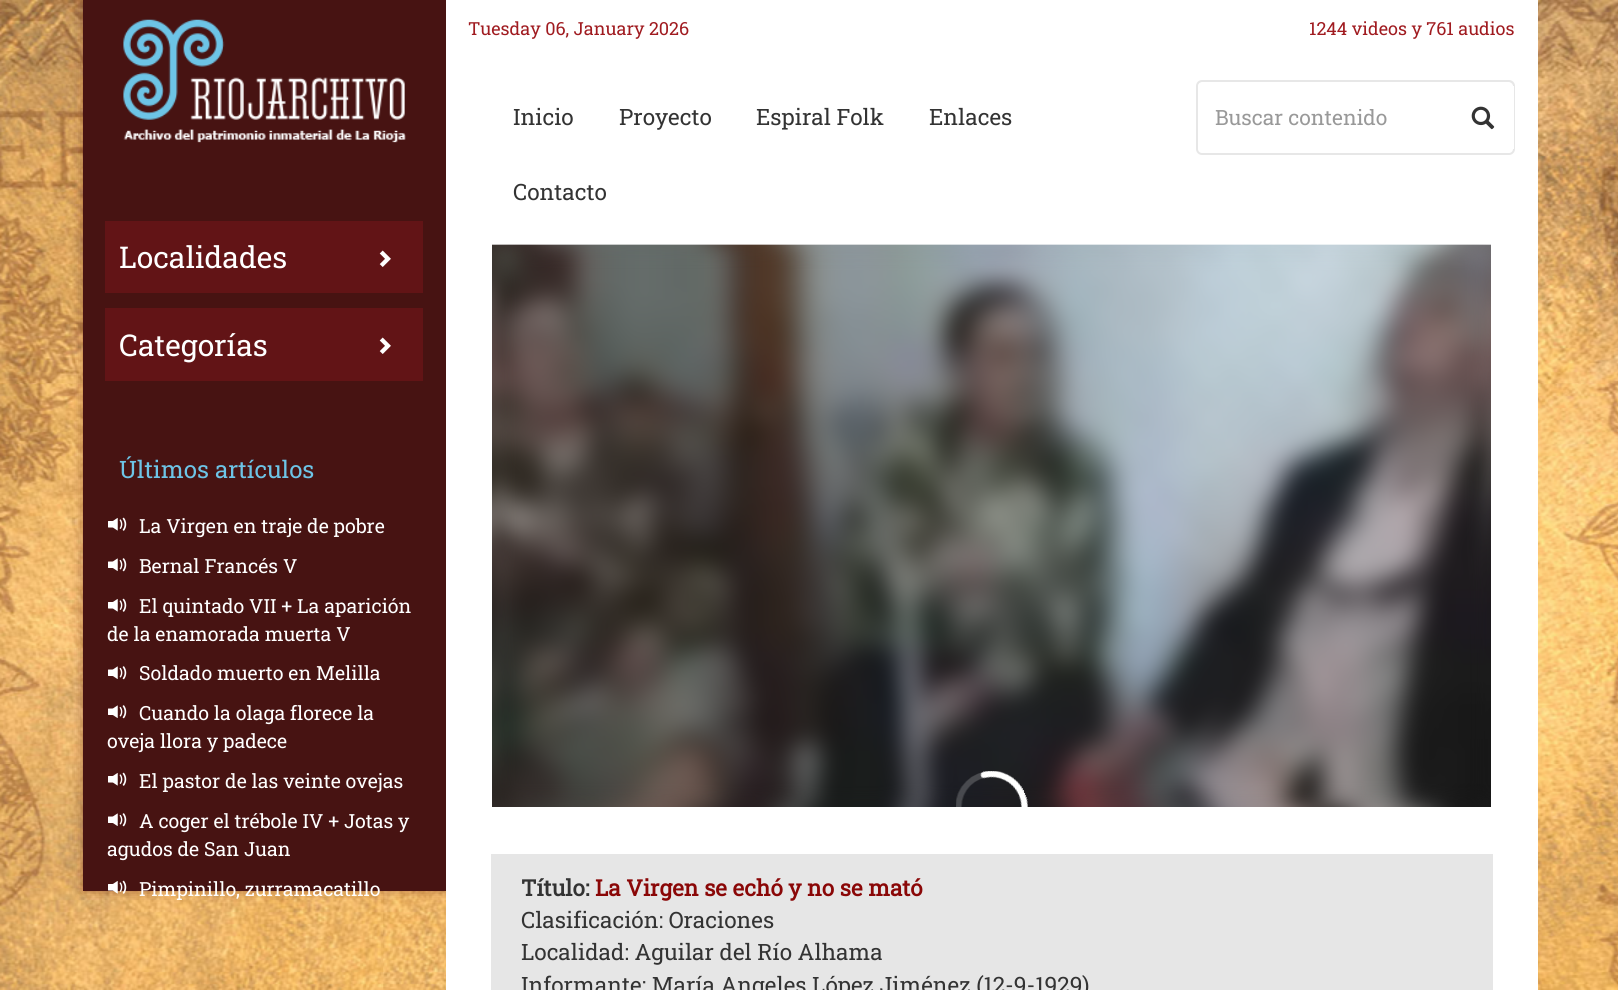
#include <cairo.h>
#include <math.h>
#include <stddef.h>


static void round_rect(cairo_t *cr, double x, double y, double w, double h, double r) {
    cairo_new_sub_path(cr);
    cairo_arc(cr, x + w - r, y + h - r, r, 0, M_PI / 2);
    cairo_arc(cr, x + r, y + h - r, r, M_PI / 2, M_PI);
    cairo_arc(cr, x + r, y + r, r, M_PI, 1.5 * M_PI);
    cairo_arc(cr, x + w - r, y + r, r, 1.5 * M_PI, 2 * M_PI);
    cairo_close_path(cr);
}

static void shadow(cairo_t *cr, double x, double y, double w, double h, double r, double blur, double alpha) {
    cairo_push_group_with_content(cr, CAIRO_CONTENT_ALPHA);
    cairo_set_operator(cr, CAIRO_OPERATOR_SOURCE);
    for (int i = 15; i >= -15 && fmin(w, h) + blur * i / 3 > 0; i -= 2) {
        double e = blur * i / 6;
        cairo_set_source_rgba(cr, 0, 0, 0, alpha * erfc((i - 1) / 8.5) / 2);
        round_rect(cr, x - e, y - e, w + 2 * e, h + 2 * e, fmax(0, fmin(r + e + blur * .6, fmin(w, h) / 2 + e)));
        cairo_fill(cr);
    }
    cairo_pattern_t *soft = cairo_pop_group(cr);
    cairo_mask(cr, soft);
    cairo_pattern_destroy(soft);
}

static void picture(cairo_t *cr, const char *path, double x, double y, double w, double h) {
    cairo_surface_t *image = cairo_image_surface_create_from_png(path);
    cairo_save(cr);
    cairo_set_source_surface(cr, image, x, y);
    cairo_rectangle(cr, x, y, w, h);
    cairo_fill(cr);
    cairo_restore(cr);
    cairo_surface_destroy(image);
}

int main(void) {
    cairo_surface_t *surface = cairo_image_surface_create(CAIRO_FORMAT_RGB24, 1618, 990);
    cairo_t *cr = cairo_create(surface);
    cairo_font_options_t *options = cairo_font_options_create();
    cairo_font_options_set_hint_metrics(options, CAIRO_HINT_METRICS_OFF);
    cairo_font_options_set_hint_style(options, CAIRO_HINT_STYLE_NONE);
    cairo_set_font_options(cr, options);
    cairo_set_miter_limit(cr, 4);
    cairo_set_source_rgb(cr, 1, 1, 1);
    cairo_paint(cr);
    picture(cr, "img1.png", 0, 0, 1618, 990);
    cairo_set_source_rgb(cr, 0.318, 0.047, 0.059);
    shadow(cr, 83, 0, 363, 891, 0, 6, 0.4);
    cairo_set_source_rgb(cr, 0.278, 0.075, 0.071);
    cairo_rectangle(cr, 83, 0, 363, 891);
    cairo_fill(cr);
    picture(cr, "img2.png", 123, 19, 283, 124);
    cairo_set_source_rgb(cr, 0.384, 0.082, 0.086);
    cairo_rectangle(cr, 105, 221, 318, 72);
    cairo_fill(cr);
    cairo_select_font_face(cr, "Roboto Slab", CAIRO_FONT_SLANT_NORMAL, CAIRO_FONT_WEIGHT_NORMAL);
    cairo_set_font_size(cr, 30);
    cairo_set_source_rgb(cr, 1, 1, 1);
    cairo_move_to(cr, 119, 268);
    cairo_show_text(cr, "Localidades");
    picture(cr, "img3.png", 379, 250, 12, 17);
    cairo_set_source_rgb(cr, 0.384, 0.082, 0.086);
    cairo_rectangle(cr, 105, 308, 318, 73);
    cairo_fill(cr);
    cairo_set_source_rgb(cr, 1, 1, 1);
    cairo_move_to(cr, 119, 356);
    cairo_show_text(cr, "Categorías");
    picture(cr, "img3.png", 379, 337, 12, 17);
    cairo_set_font_size(cr, 24);
    cairo_set_source_rgb(cr, 0.427, 0.769, 0.902);
    cairo_move_to(cr, 119, 478);
    cairo_show_text(cr, "Últimos artículos");
    picture(cr, "img4.png", 108, 517, 19, 14);
    cairo_set_font_size(cr, 19.5);
    cairo_set_source_rgb(cr, 1, 1, 1);
    cairo_move_to(cr, 139, 533);
    cairo_show_text(cr, "La Virgen en traje de pobre");
    picture(cr, "img5.png", 108, 558, 19, 14);
    cairo_move_to(cr, 139, 573);
    cairo_show_text(cr, "Bernal Francés V");
    picture(cr, "img4.png", 108, 598, 19, 14);
    cairo_move_to(cr, 139, 613);
    cairo_show_text(cr, "El quintado VII + La aparición");
    cairo_move_to(cr, 107, 641);
    cairo_show_text(cr, "de la enamorada muerta V");
    picture(cr, "img5.png", 108, 666, 19, 14);
    cairo_move_to(cr, 139, 680);
    cairo_show_text(cr, "Soldado muerto en Melilla");
    picture(cr, "img5.png", 108, 705, 19, 14);
    cairo_move_to(cr, 139, 720);
    cairo_show_text(cr, "Cuando la olaga florece la");
    cairo_move_to(cr, 107, 748);
    cairo_show_text(cr, "oveja llora y padece");
    picture(cr, "img4.png", 108, 772, 19, 14);
    cairo_move_to(cr, 139, 788);
    cairo_show_text(cr, "El pastor de las veinte ovejas");
    picture(cr, "img5.png", 108, 813, 19, 14);
    cairo_move_to(cr, 139, 828);
    cairo_show_text(cr, "A coger el trébole IV + Jotas y");
    cairo_move_to(cr, 107, 856);
    cairo_show_text(cr, "agudos de San Juan");
    picture(cr, "img6.png", 108, 880, 19, 14);
    cairo_move_to(cr, 139, 896);
    cairo_show_text(cr, "Pimpinillo, zurramacatillo");
    cairo_rectangle(cr, 446, 0, 1092, 990);
    cairo_fill(cr);
    cairo_set_font_size(cr, 18);
    cairo_set_source_rgb(cr, 0.627, 0.106, 0.125);
    cairo_move_to(cr, 468, 35);
    cairo_show_text(cr, "Tuesday 06, January 2026");
    cairo_move_to(cr, 1309, 35);
    cairo_show_text(cr, "1244 videos y 761 audios");
    cairo_set_font_size(cr, 22.5);
    cairo_set_source_rgb(cr, 0.2, 0.2, 0.2);
    cairo_move_to(cr, 513, 125);
    cairo_show_text(cr, "Inicio");
    cairo_move_to(cr, 619, 125);
    cairo_show_text(cr, "Proyecto");
    cairo_move_to(cr, 756, 125);
    cairo_show_text(cr, "Espiral Folk");
    cairo_move_to(cr, 929, 125);
    cairo_show_text(cr, "Enlaces");
    cairo_move_to(cr, 513, 200);
    cairo_show_text(cr, "Contacto");
    cairo_set_source_rgb(cr, 0.925, 0.925, 0.925);
    cairo_new_path(cr);
    cairo_move_to(cr, 1202, 82);
    cairo_line_to(cr, 1509, 82);
    cairo_curve_to(cr, 1511, 82, 1514, 85, 1514, 87);
    cairo_curve_to(cr, 1514, 84, 1512, 81, 1509, 81);
    cairo_line_to(cr, 1202, 81);
    cairo_curve_to(cr, 1199, 81, 1197, 84, 1197, 87);
    cairo_curve_to(cr, 1197, 85, 1199, 82, 1202, 82);
    cairo_close_path(cr);
    cairo_fill(cr);
    round_rect(cr, 1197, 81, 317, 73, 5);
    cairo_set_source_rgb(cr, 0.906, 0.906, 0.906);
    cairo_stroke(cr);
    cairo_set_font_size(cr, 21);
    cairo_set_source_rgb(cr, 0.6, 0.6, 0.6);
    cairo_move_to(cr, 1215, 125);
    cairo_show_text(cr, "Buscar contenido");
    cairo_set_source_rgb(cr, 1, 1, 1);
    cairo_rectangle(cr, 1513, 86, 1, 63);
    cairo_fill(cr);
    picture(cr, "img7.png", 1471, 106, 24, 24);
    picture(cr, "img8.png", 492, 244, 999, 563);
    cairo_set_source_rgb(cr, 0.902, 0.902, 0.902);
    cairo_rectangle(cr, 491, 854, 1002, 136);
    cairo_fill(cr);
    cairo_select_font_face(cr, "Roboto Slab", CAIRO_FONT_SLANT_NORMAL, CAIRO_FONT_WEIGHT_BOLD);
    cairo_set_font_size(cr, 22.5);
    cairo_set_source_rgb(cr, 0.2, 0.2, 0.2);
    cairo_move_to(cr, 521, 896);
    cairo_show_text(cr, "Título:");
    cairo_set_source_rgb(cr, 0.541, 0.031, 0.031);
    cairo_move_to(cr, 595, 896);
    cairo_show_text(cr, "La Virgen se echó y no se mató");
    cairo_select_font_face(cr, "Roboto Slab", CAIRO_FONT_SLANT_NORMAL, CAIRO_FONT_WEIGHT_NORMAL);
    cairo_set_source_rgb(cr, 0.2, 0.2, 0.2);
    cairo_move_to(cr, 521, 928);
    cairo_show_text(cr, "Clasificación: Oraciones");
    cairo_move_to(cr, 521, 960);
    cairo_show_text(cr, "Localidad: Aguilar del Río Alhama");
    cairo_move_to(cr, 521, 993);
    cairo_show_text(cr, "Informante: María Angeles López Jiménez (12-9-1929)");
    cairo_surface_write_to_png(surface, "page.png");
    cairo_font_options_destroy(options);
    cairo_destroy(cr);
    cairo_surface_destroy(surface);
    return 0;
}
